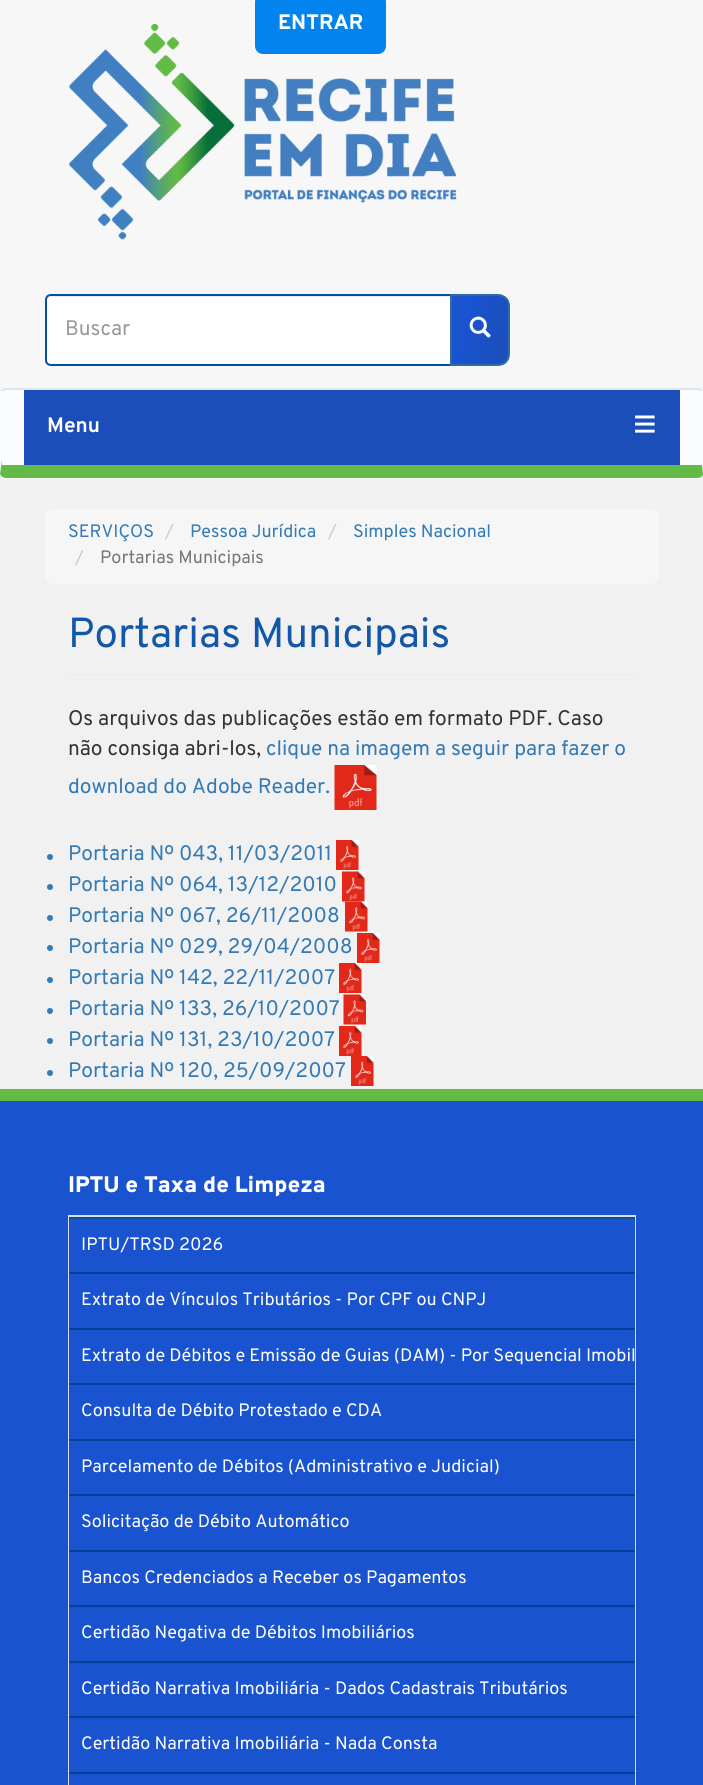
#include <cairo.h>
#include <math.h>
#include <stddef.h>


static void round_rect(cairo_t *cr, double x, double y, double w, double h, double r) {
    cairo_new_sub_path(cr);
    cairo_arc(cr, x + w - r, y + h - r, r, 0, M_PI / 2);
    cairo_arc(cr, x + r, y + h - r, r, M_PI / 2, M_PI);
    cairo_arc(cr, x + r, y + r, r, M_PI, 1.5 * M_PI);
    cairo_arc(cr, x + w - r, y + r, r, 1.5 * M_PI, 2 * M_PI);
    cairo_close_path(cr);
}

static void picture(cairo_t *cr, const char *path, double x, double y, double w, double h) {
    cairo_surface_t *image = cairo_image_surface_create_from_png(path);
    cairo_save(cr);
    cairo_set_source_surface(cr, image, x, y);
    cairo_rectangle(cr, x, y, w, h);
    cairo_fill(cr);
    cairo_restore(cr);
    cairo_surface_destroy(image);
}

int main(void) {
    cairo_surface_t *surface = cairo_image_surface_create(CAIRO_FORMAT_RGB24, 703, 1785);
    cairo_t *cr = cairo_create(surface);
    cairo_font_options_t *options = cairo_font_options_create();
    cairo_font_options_set_hint_metrics(options, CAIRO_HINT_METRICS_OFF);
    cairo_font_options_set_hint_style(options, CAIRO_HINT_STYLE_NONE);
    cairo_set_font_options(cr, options);
    cairo_set_miter_limit(cr, 4);
    cairo_pattern_t *gradient;
    cairo_set_source_rgb(cr, 0.945, 0.945, 0.945);
    cairo_paint(cr);
    cairo_set_source_rgb(cr, 0.965, 0.965, 0.965);
    cairo_rectangle(cr, 0, 0, 703, 389);
    cairo_fill(cr);
    picture(cr, "img2.png", 69, 24, 388, 216);
    cairo_set_source_rgb(cr, 0.008, 0.514, 0.933);
    round_rect(cr, 255, -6, 131, 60, 8);
    cairo_fill(cr);
    cairo_select_font_face(cr, "Overpass ExtraBold", CAIRO_FONT_SLANT_NORMAL, CAIRO_FONT_WEIGHT_NORMAL);
    cairo_set_font_size(cr, 21);
    cairo_set_source_rgb(cr, 1, 1, 1);
    cairo_move_to(cr, 278, 29);
    cairo_show_text(cr, "ENTRAR");
    cairo_new_path(cr);
    cairo_move_to(cr, 51, 294);
    cairo_line_to(cr, 452, 294);
    cairo_line_to(cr, 452, 366);
    cairo_line_to(cr, 51, 366);
    cairo_curve_to(cr, 47.5, 366, 45, 363.5, 45, 360);
    cairo_line_to(cr, 45, 300);
    cairo_curve_to(cr, 45, 296.5, 47.5, 294, 51, 294);
    cairo_close_path(cr);
    cairo_fill(cr);
    cairo_set_source_rgb(cr, 0.925, 0.925, 0.925);
    cairo_new_path(cr);
    cairo_move_to(cr, 51, 297);
    cairo_line_to(cr, 450, 297);
    cairo_line_to(cr, 450, 296);
    cairo_line_to(cr, 52, 296);
    cairo_curve_to(cr, 50, 296, 49, 297, 48, 298);
    cairo_close_path(cr);
    cairo_fill(cr);
    cairo_new_path(cr);
    cairo_move_to(cr, 51, 295);
    cairo_line_to(cr, 451, 295);
    cairo_line_to(cr, 451, 365);
    cairo_line_to(cr, 51, 365);
    cairo_curve_to(cr, 48, 365, 46, 363, 46, 360);
    cairo_line_to(cr, 46, 300);
    cairo_curve_to(cr, 46, 297, 48, 295, 51, 295);
    cairo_close_path(cr);
    cairo_set_source_rgb(cr, 0.012, 0.314, 0.635);
    cairo_stroke(cr);
    cairo_select_font_face(cr, "Overpass", CAIRO_FONT_SLANT_NORMAL, CAIRO_FONT_WEIGHT_NORMAL);
    cairo_set_source_rgb(cr, 0.6, 0.6, 0.6);
    cairo_move_to(cr, 65, 335);
    cairo_show_text(cr, "Buscar");
    cairo_save(cr);
    cairo_new_path(cr);
    cairo_move_to(cr, 450, 294);
    cairo_line_to(cr, 498, 294);
    cairo_curve_to(cr, 504.5, 294, 510, 299.5, 510, 306);
    cairo_line_to(cr, 510, 354);
    cairo_curve_to(cr, 510, 360.5, 504.5, 366, 498, 366);
    cairo_line_to(cr, 450, 366);
    cairo_close_path(cr);
    cairo_clip(cr);
    gradient = cairo_pattern_create_linear(514, 336, 446, 324);
    cairo_pattern_add_color_stop_rgba(gradient, 0.01, 0.11, 0.306, 0.729, 1);
    cairo_pattern_add_color_stop_rgba(gradient, 0.73, 0.098, 0.325, 0.816, 1);
    cairo_set_source(cr, gradient);
    cairo_pattern_destroy(gradient);
    cairo_rectangle(cr, 452, 296, 57, 69);
    cairo_fill(cr);
    cairo_restore(cr);
    cairo_new_path(cr);
    cairo_move_to(cr, 451, 295);
    cairo_line_to(cr, 498, 295);
    cairo_curve_to(cr, 504, 295, 509, 300, 509, 306);
    cairo_line_to(cr, 509, 354);
    cairo_curve_to(cr, 509, 360, 504, 365, 498, 365);
    cairo_line_to(cr, 451, 365);
    cairo_close_path(cr);
    cairo_set_source_rgb(cr, 0.18, 0.427, 0.643);
    cairo_stroke(cr);
    picture(cr, "img1.png", 469, 316, 22, 22);
    cairo_set_source_rgb(cr, 0.984, 0.988, 0.996);
    round_rect(cr, 0, 389, 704, 90, 6);
    cairo_fill(cr);
    cairo_set_source_rgb(cr, 0.878, 0.902, 0.937);
    cairo_new_path(cr);
    cairo_move_to(cr, 6, 390);
    cairo_curve_to(cr, 5, 390, 4, 391, 3, 392);
    cairo_line_to(cr, 2, 390);
    cairo_line_to(cr, 4, 388);
    cairo_line_to(cr, 700, 388);
    cairo_line_to(cr, 702, 390);
    cairo_line_to(cr, 701, 391);
    cairo_line_to(cr, 698, 390);
    cairo_close_path(cr);
    cairo_fill(cr);
    cairo_set_source_rgb(cr, 0.388, 0.733, 0.275);
    cairo_new_path(cr);
    cairo_move_to(cr, 703, 475);
    cairo_curve_to(cr, 702, 477, 700, 478, 698, 478);
    cairo_line_to(cr, 6, 478);
    cairo_curve_to(cr, 4, 478, 1, 477, 0, 474);
    cairo_line_to(cr, 2, 460);
    cairo_line_to(cr, 2, 465);
    cairo_line_to(cr, 702, 465);
    cairo_close_path(cr);
    cairo_fill(cr);
    cairo_set_source_rgb(cr, 0.11, 0.306, 0.729);
    cairo_rectangle(cr, 24, 390, 656, 75);
    cairo_fill(cr);
    cairo_select_font_face(cr, "Overpass", CAIRO_FONT_SLANT_NORMAL, CAIRO_FONT_WEIGHT_BOLD);
    cairo_set_source_rgb(cr, 1, 1, 1);
    cairo_move_to(cr, 47, 432);
    cairo_show_text(cr, "Menu");
    cairo_select_font_face(cr, "Liberation Serif", CAIRO_FONT_SLANT_NORMAL, CAIRO_FONT_WEIGHT_BOLD);
    cairo_set_font_size(cr, 42);
    cairo_move_to(cr, 633, 438);
    cairo_show_text(cr, "≡");
    cairo_set_source_rgb(cr, 0.961, 0.961, 0.961);
    round_rect(cr, 45, 509, 614, 75, 9);
    cairo_fill(cr);
    cairo_select_font_face(cr, "Overpass", CAIRO_FONT_SLANT_NORMAL, CAIRO_FONT_WEIGHT_NORMAL);
    cairo_set_font_size(cr, 18);
    cairo_set_source_rgb(cr, 0.2, 0.478, 0.718);
    cairo_move_to(cr, 68, 537);
    cairo_show_text(cr, "SERVIÇOS");
    cairo_set_source_rgb(cr, 0.8, 0.8, 0.8);
    cairo_move_to(cr, 165, 537);
    cairo_show_text(cr, "/");
    cairo_set_source_rgb(cr, 0.2, 0.478, 0.718);
    cairo_move_to(cr, 190, 537);
    cairo_show_text(cr, "Pessoa Jurídica");
    cairo_set_source_rgb(cr, 0.8, 0.8, 0.8);
    cairo_move_to(cr, 328, 537);
    cairo_show_text(cr, "/");
    cairo_set_source_rgb(cr, 0.2, 0.478, 0.718);
    cairo_move_to(cr, 353, 537);
    cairo_show_text(cr, "Simples Nacional");
    cairo_set_source_rgb(cr, 0.8, 0.8, 0.8);
    cairo_move_to(cr, 75, 563);
    cairo_show_text(cr, "/");
    cairo_set_source_rgb(cr, 0.467, 0.467, 0.467);
    cairo_move_to(cr, 100, 563);
    cairo_show_text(cr, "Portarias Municipais");
    cairo_set_source_rgb(cr, 0.933, 0.933, 0.933);
    cairo_rectangle(cr, 68, 674, 568, 2);
    cairo_fill(cr);
    cairo_set_font_size(cr, 42);
    cairo_set_source_rgb(cr, 0.071, 0.341, 0.667);
    cairo_move_to(cr, 68, 647);
    cairo_show_text(cr, "Portarias Municipais");
    cairo_set_font_size(cr, 21);
    cairo_set_source_rgb(cr, 0.2, 0.2, 0.2);
    cairo_move_to(cr, 68, 725);
    cairo_show_text(cr, "Os arquivos das publicações estão em formato PDF. Caso");
    cairo_move_to(cr, 68, 755);
    cairo_show_text(cr, "não consiga abri-los,");
    cairo_set_source_rgb(cr, 0.2, 0.478, 0.718);
    cairo_move_to(cr, 266, 755);
    cairo_show_text(cr, "clique na imagem a seguir para fazer o");
    cairo_move_to(cr, 68, 793);
    cairo_show_text(cr, "download do Adobe Reader.");
    picture(cr, "img3.png", 334, 765, 43, 45);
    cairo_arc(cr, 50, 857, 3, 0, 2 * M_PI);
    cairo_fill(cr);
    cairo_move_to(cr, 68, 860);
    cairo_show_text(cr, "Portaria Nº 043, 11/03/2011");
    picture(cr, "img4.png", 336, 840, 23, 30);
    cairo_arc(cr, 50, 887, 3, 0, 2 * M_PI);
    cairo_fill(cr);
    cairo_move_to(cr, 68, 891);
    cairo_show_text(cr, "Portaria Nº 064, 13/12/2010");
    picture(cr, "img5.png", 342, 871, 23, 31);
    cairo_arc(cr, 50, 918, 3, 0, 2 * M_PI);
    cairo_fill(cr);
    cairo_move_to(cr, 68, 922);
    cairo_show_text(cr, "Portaria Nº 067, 26/11/2008");
    picture(cr, "img6.png", 345, 901, 23, 31);
    cairo_arc(cr, 50, 948, 3, 0, 2 * M_PI);
    cairo_fill(cr);
    cairo_move_to(cr, 68, 953);
    cairo_show_text(cr, "Portaria Nº 029, 29/04/2008");
    picture(cr, "img4.png", 357, 933, 23, 30);
    cairo_arc(cr, 50, 980, 3, 0, 2 * M_PI);
    cairo_fill(cr);
    cairo_move_to(cr, 68, 984);
    cairo_show_text(cr, "Portaria Nº 142, 22/11/2007");
    picture(cr, "img4.png", 339, 963, 23, 30);
    cairo_arc(cr, 50, 1011, 3, 0, 2 * M_PI);
    cairo_fill(cr);
    cairo_move_to(cr, 68, 1015);
    cairo_show_text(cr, "Portaria Nº 133, 26/10/2007");
    picture(cr, "img7.png", 343, 994, 23, 31);
    cairo_arc(cr, 50, 1041, 3, 0, 2 * M_PI);
    cairo_fill(cr);
    cairo_move_to(cr, 68, 1046);
    cairo_show_text(cr, "Portaria Nº 131, 23/10/2007");
    picture(cr, "img4.png", 339, 1026, 23, 30);
    cairo_arc(cr, 50, 1073, 3, 0, 2 * M_PI);
    cairo_fill(cr);
    cairo_move_to(cr, 68, 1077);
    cairo_show_text(cr, "Portaria Nº 120, 25/09/2007");
    picture(cr, "img4.png", 351, 1056, 23, 30);
    cairo_set_source_rgb(cr, 0.098, 0.325, 0.816);
    cairo_rectangle(cr, 0, 1101, 703, 684);
    cairo_fill(cr);
    cairo_set_source_rgb(cr, 0.388, 0.733, 0.275);
    cairo_rectangle(cr, 0, 1089, 703, 12);
    cairo_fill(cr);
    cairo_select_font_face(cr, "Overpass Black", CAIRO_FONT_SLANT_NORMAL, CAIRO_FONT_WEIGHT_NORMAL);
    cairo_set_font_size(cr, 22.5);
    cairo_set_source_rgb(cr, 1, 1, 1);
    cairo_move_to(cr, 68, 1192);
    cairo_show_text(cr, "IPTU e Taxa de Limpeza");
    cairo_rectangle(cr, 69, 1216, 566, 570);
    cairo_set_source_rgb(cr, 0.867, 0.867, 0.867);
    cairo_stroke(cr);
    cairo_set_source_rgb(cr, 0.098, 0.325, 0.816);
    cairo_rectangle(cr, 69, 1219, 566, 53);
    cairo_fill(cr);
    cairo_set_source_rgb(cr, 0.016, 0.31, 0.631);
    cairo_rectangle(cr, 69, 1217, 566, 2);
    cairo_fill(cr);
    cairo_set_source_rgb(cr, 0.008, 0.255, 0.584);
    cairo_rectangle(cr, 69, 1272, 566, 2);
    cairo_fill(cr);
    cairo_select_font_face(cr, "Overpass", CAIRO_FONT_SLANT_NORMAL, CAIRO_FONT_WEIGHT_NORMAL);
    cairo_set_font_size(cr, 18);
    cairo_set_source_rgb(cr, 1, 1, 1);
    cairo_move_to(cr, 81, 1250);
    cairo_show_text(cr, "IPTU/TRSD 2026");
    cairo_set_source_rgb(cr, 0.098, 0.325, 0.816);
    cairo_rectangle(cr, 69, 1274, 566, 54);
    cairo_fill(cr);
    cairo_set_source_rgb(cr, 0.008, 0.255, 0.584);
    cairo_rectangle(cr, 69, 1328, 566, 2);
    cairo_fill(cr);
    cairo_set_source_rgb(cr, 1, 1, 1);
    cairo_move_to(cr, 81, 1305);
    cairo_show_text(cr, "Extrato de Vínculos Tributários - Por CPF ou CNPJ");
    cairo_set_source_rgb(cr, 0.098, 0.325, 0.816);
    cairo_rectangle(cr, 69, 1330, 566, 53);
    cairo_fill(cr);
    cairo_set_source_rgb(cr, 0.008, 0.255, 0.584);
    cairo_rectangle(cr, 69, 1383, 566, 2);
    cairo_fill(cr);
    cairo_set_source_rgb(cr, 1, 1, 1);
    cairo_move_to(cr, 81, 1361);
    cairo_show_text(cr, "Extrato de Débitos e Emissão de Guias (DAM) - Por Sequencial Imobil");
    cairo_set_source_rgb(cr, 0.098, 0.325, 0.816);
    cairo_rectangle(cr, 69, 1385, 566, 54);
    cairo_fill(cr);
    cairo_set_source_rgb(cr, 0.008, 0.255, 0.584);
    cairo_rectangle(cr, 69, 1439, 566, 2);
    cairo_fill(cr);
    cairo_set_source_rgb(cr, 1, 1, 1);
    cairo_move_to(cr, 81, 1416);
    cairo_show_text(cr, "Consulta de Débito Protestado e CDA");
    cairo_set_source_rgb(cr, 0.098, 0.325, 0.816);
    cairo_rectangle(cr, 69, 1441, 566, 53);
    cairo_fill(cr);
    cairo_set_source_rgb(cr, 0.008, 0.255, 0.584);
    cairo_rectangle(cr, 69, 1494, 566, 2);
    cairo_fill(cr);
    cairo_set_source_rgb(cr, 1, 1, 1);
    cairo_move_to(cr, 81, 1472);
    cairo_show_text(cr, "Parcelamento de Débitos (Administrativo e Judicial)");
    cairo_set_source_rgb(cr, 0.098, 0.325, 0.816);
    cairo_rectangle(cr, 69, 1496, 566, 54);
    cairo_fill(cr);
    cairo_set_source_rgb(cr, 0.008, 0.255, 0.584);
    cairo_rectangle(cr, 69, 1550, 566, 2);
    cairo_fill(cr);
    cairo_set_source_rgb(cr, 1, 1, 1);
    cairo_move_to(cr, 81, 1527);
    cairo_show_text(cr, "Solicitação de Débito Automático");
    cairo_set_source_rgb(cr, 0.098, 0.325, 0.816);
    cairo_rectangle(cr, 69, 1552, 566, 53);
    cairo_fill(cr);
    cairo_set_source_rgb(cr, 0.008, 0.255, 0.584);
    cairo_rectangle(cr, 69, 1605, 566, 2);
    cairo_fill(cr);
    cairo_set_source_rgb(cr, 1, 1, 1);
    cairo_move_to(cr, 81, 1583);
    cairo_show_text(cr, "Bancos Credenciados a Receber os Pagamentos");
    cairo_set_source_rgb(cr, 0.098, 0.325, 0.816);
    cairo_rectangle(cr, 69, 1607, 566, 54);
    cairo_fill(cr);
    cairo_set_source_rgb(cr, 0.008, 0.255, 0.584);
    cairo_rectangle(cr, 69, 1661, 566, 2);
    cairo_fill(cr);
    cairo_set_source_rgb(cr, 1, 1, 1);
    cairo_move_to(cr, 81, 1638);
    cairo_show_text(cr, "Certidão Negativa de Débitos Imobiliários");
    cairo_set_source_rgb(cr, 0.098, 0.325, 0.816);
    cairo_rectangle(cr, 69, 1663, 566, 53);
    cairo_fill(cr);
    cairo_set_source_rgb(cr, 0.008, 0.255, 0.584);
    cairo_rectangle(cr, 69, 1716, 566, 2);
    cairo_fill(cr);
    cairo_set_source_rgb(cr, 1, 1, 1);
    cairo_move_to(cr, 81, 1694);
    cairo_show_text(cr, "Certidão Narrativa Imobiliária - Dados Cadastrais Tributários");
    cairo_set_source_rgb(cr, 0.098, 0.325, 0.816);
    cairo_rectangle(cr, 69, 1718, 566, 54);
    cairo_fill(cr);
    cairo_set_source_rgb(cr, 0.008, 0.255, 0.584);
    cairo_rectangle(cr, 69, 1772, 566, 2);
    cairo_fill(cr);
    cairo_set_source_rgb(cr, 1, 1, 1);
    cairo_move_to(cr, 81, 1749);
    cairo_show_text(cr, "Certidão Narrativa Imobiliária - Nada Consta");
    cairo_set_source_rgb(cr, 0.098, 0.325, 0.816);
    cairo_rectangle(cr, 69, 1774, 566, 11);
    cairo_fill(cr);
    cairo_surface_write_to_png(surface, "page.png");
    cairo_font_options_destroy(options);
    cairo_destroy(cr);
    cairo_surface_destroy(surface);
    return 0;
}
